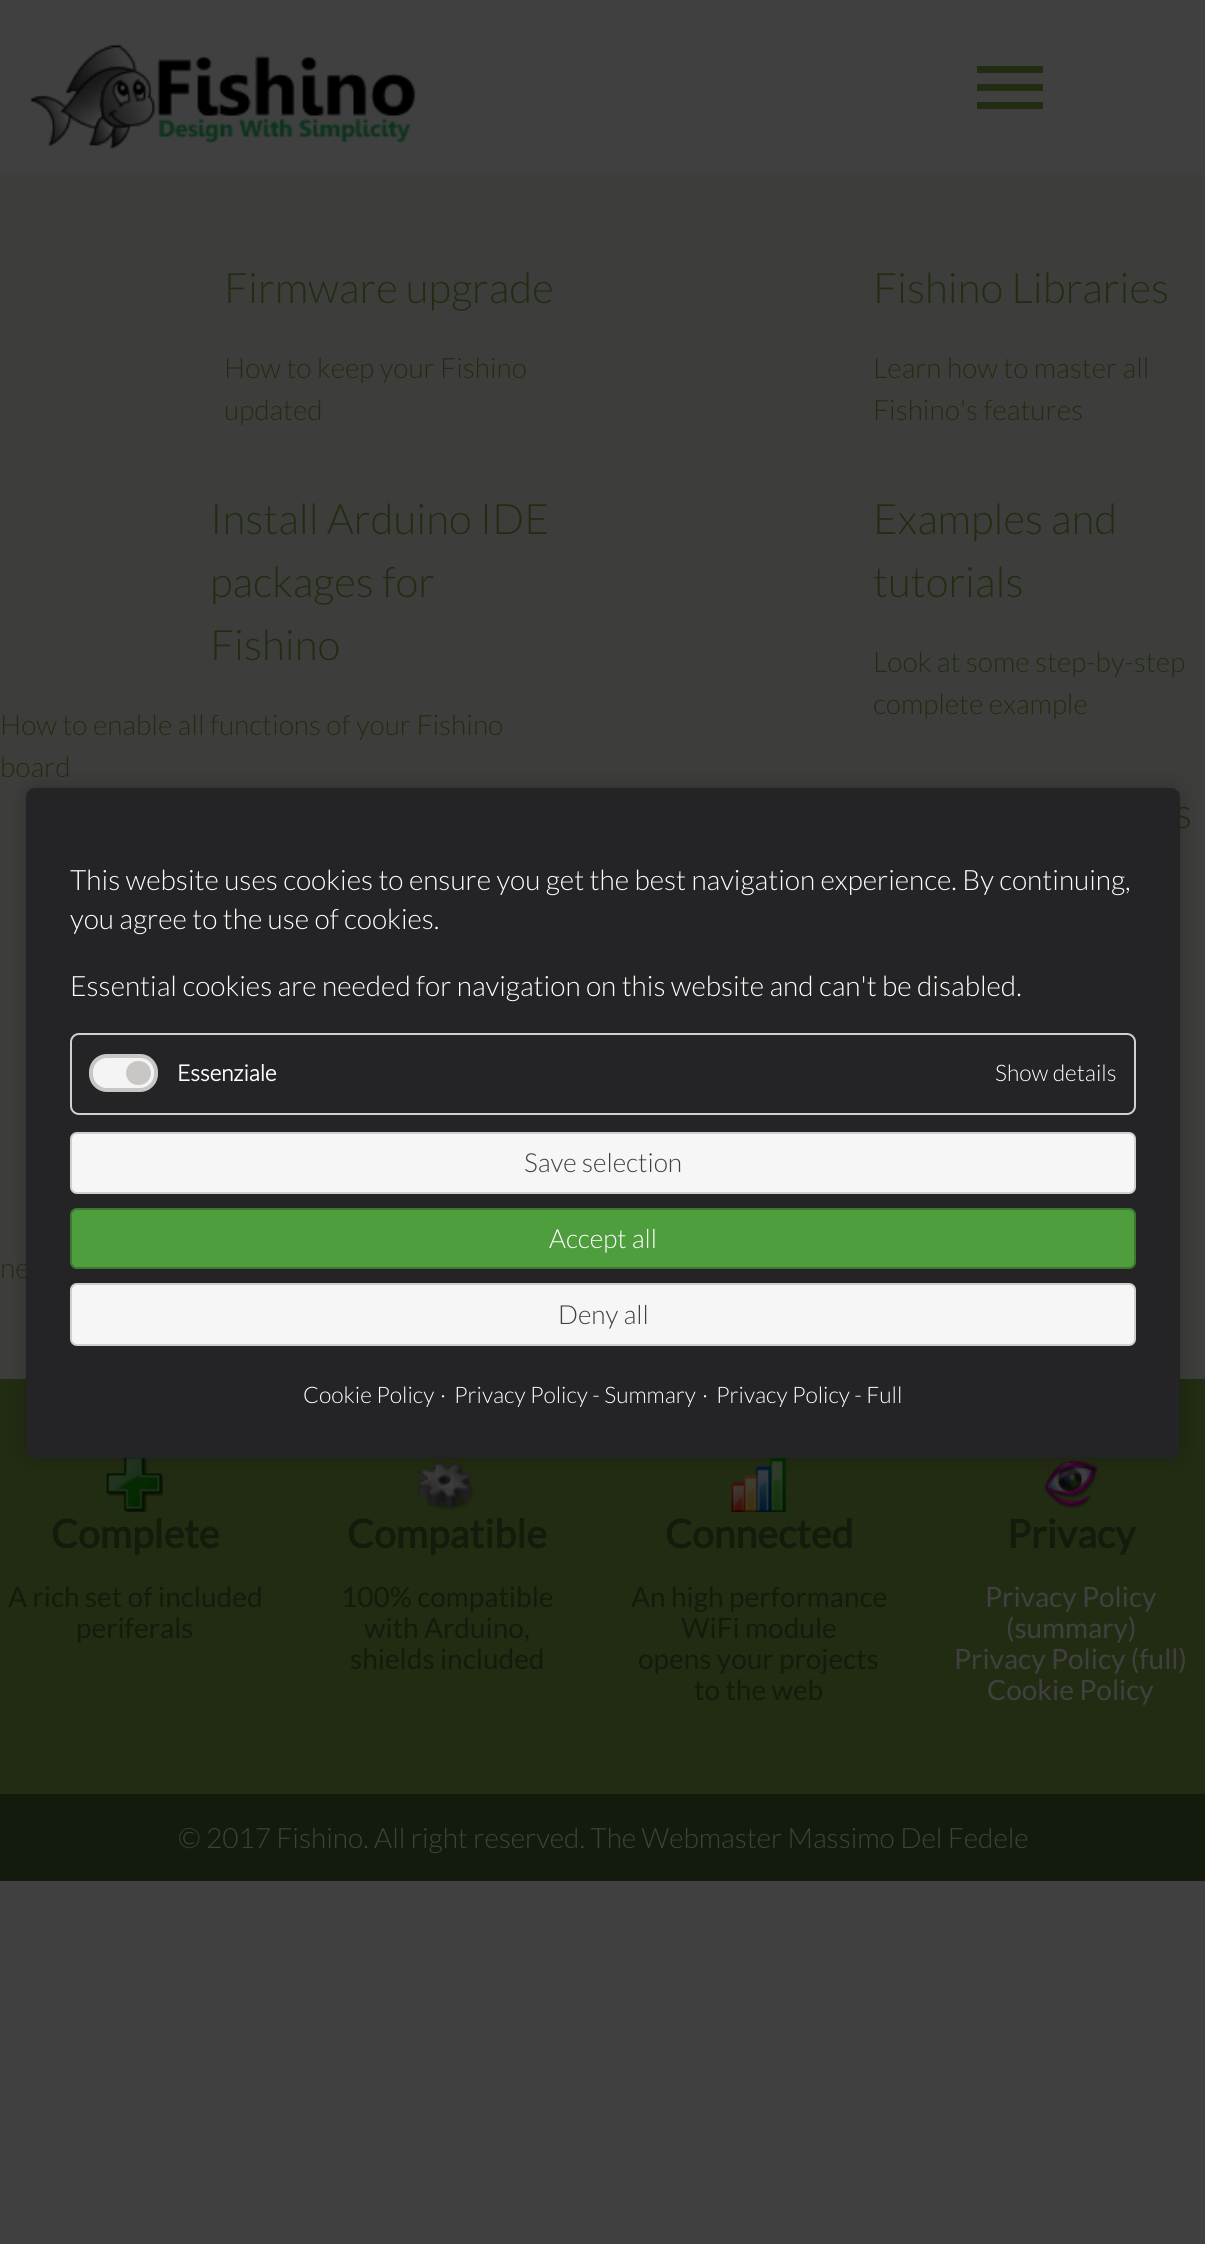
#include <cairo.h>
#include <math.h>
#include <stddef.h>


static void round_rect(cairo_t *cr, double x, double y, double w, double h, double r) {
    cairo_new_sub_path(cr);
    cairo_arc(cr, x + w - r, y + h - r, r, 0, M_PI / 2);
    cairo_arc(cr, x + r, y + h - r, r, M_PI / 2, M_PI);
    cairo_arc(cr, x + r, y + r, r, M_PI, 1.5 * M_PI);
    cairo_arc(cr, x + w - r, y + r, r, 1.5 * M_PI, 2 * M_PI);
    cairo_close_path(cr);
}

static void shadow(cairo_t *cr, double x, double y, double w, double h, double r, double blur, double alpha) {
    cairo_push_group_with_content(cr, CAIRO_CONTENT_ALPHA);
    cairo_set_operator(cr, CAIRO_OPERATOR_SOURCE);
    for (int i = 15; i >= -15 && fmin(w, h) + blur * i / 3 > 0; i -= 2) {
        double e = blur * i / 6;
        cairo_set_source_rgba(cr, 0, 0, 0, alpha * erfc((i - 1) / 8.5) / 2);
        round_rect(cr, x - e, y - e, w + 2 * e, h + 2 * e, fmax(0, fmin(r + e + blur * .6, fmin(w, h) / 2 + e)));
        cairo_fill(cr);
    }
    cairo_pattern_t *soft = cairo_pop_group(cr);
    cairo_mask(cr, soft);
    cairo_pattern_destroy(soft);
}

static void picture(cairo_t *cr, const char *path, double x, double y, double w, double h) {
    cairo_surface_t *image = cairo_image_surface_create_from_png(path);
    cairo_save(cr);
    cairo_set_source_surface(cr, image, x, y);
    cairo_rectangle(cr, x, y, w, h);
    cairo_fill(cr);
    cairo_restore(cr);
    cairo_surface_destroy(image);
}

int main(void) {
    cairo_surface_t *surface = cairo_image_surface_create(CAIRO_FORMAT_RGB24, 1205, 2244);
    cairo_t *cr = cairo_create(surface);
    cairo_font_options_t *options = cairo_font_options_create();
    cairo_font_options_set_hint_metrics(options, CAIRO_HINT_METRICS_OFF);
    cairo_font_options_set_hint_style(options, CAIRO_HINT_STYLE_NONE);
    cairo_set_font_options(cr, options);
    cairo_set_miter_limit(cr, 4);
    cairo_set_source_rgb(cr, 0.251, 0.251, 0.251);
    cairo_paint(cr);
    cairo_set_source_rgb(cr, 0.239, 0.243, 0.235);
    cairo_rectangle(cr, 0, 175, 1205, 1204);
    cairo_fill(cr);
    picture(cr, "img1.png", 30, 44, 386, 105);
    cairo_set_source_rgb(cr, 0.133, 0.173, 0.071);
    cairo_new_path(cr);
    cairo_move_to(cr, 977, 66);
    cairo_line_to(cr, 1043, 66);
    cairo_line_to(cr, 1043, 73);
    cairo_line_to(cr, 977, 73);
    cairo_close_path(cr);
    cairo_move_to(cr, 977, 91);
    cairo_line_to(cr, 977, 84);
    cairo_line_to(cr, 1043, 84);
    cairo_line_to(cr, 1043, 91);
    cairo_close_path(cr);
    cairo_move_to(cr, 977, 109);
    cairo_line_to(cr, 977, 102);
    cairo_line_to(cr, 1043, 102);
    cairo_line_to(cr, 1043, 109);
    cairo_close_path(cr);
    cairo_fill(cr);
    cairo_select_font_face(cr, "Lato Light", CAIRO_FONT_SLANT_NORMAL, CAIRO_FONT_WEIGHT_NORMAL);
    cairo_set_font_size(cr, 42);
    cairo_move_to(cr, 224, 303);
    cairo_show_text(cr, "Firmware upgrade");
    cairo_set_font_size(cr, 28);
    cairo_move_to(cr, 224, 378);
    cairo_show_text(cr, "How to keep your Fishino");
    cairo_move_to(cr, 224, 420);
    cairo_show_text(cr, "updated");
    cairo_set_font_size(cr, 42);
    cairo_move_to(cr, 210, 534);
    cairo_show_text(cr, "Install Arduino IDE");
    cairo_move_to(cr, 210, 597);
    cairo_show_text(cr, "packages for");
    cairo_move_to(cr, 210, 660);
    cairo_show_text(cr, "Fishino");
    cairo_set_font_size(cr, 28);
    cairo_move_to(cr, 0, 735);
    cairo_show_text(cr, "How to enable all functions of your Fishino");
    cairo_move_to(cr, 0, 777);
    cairo_show_text(cr, "board");
    cairo_move_to(cr, 0, 1278);
    cairo_show_text(cr, "ne");
    cairo_set_font_size(cr, 42);
    cairo_move_to(cr, 873, 303);
    cairo_show_text(cr, "Fishino Libraries");
    cairo_set_font_size(cr, 28);
    cairo_move_to(cr, 873, 378);
    cairo_show_text(cr, "Learn how to master all");
    cairo_move_to(cr, 873, 420);
    cairo_show_text(cr, "Fishino's features");
    cairo_set_font_size(cr, 42);
    cairo_move_to(cr, 873, 534);
    cairo_show_text(cr, "Examples and");
    cairo_move_to(cr, 873, 597);
    cairo_show_text(cr, "tutorials");
    cairo_set_font_size(cr, 28);
    cairo_move_to(cr, 873, 672);
    cairo_show_text(cr, "Look at some step-by-step");
    cairo_move_to(cr, 873, 714);
    cairo_show_text(cr, "complete example");
    cairo_set_font_size(cr, 42);
    cairo_move_to(cr, 1174, 828);
    cairo_show_text(cr, "s");
    cairo_rectangle(cr, 0, 1379, 1205, 415);
    cairo_fill(cr);
    picture(cr, "img2.png", 106, 1458, 57, 54);
    cairo_select_font_face(cr, "Lato", CAIRO_FONT_SLANT_NORMAL, CAIRO_FONT_WEIGHT_BOLD);
    cairo_set_font_size(cr, 39.25);
    cairo_set_source_rgb(cr, 0.071, 0.106, 0.047);
    cairo_move_to(cr, 51, 1548);
    cairo_show_text(cr, "Complete");
    cairo_select_font_face(cr, "Lato", CAIRO_FONT_SLANT_NORMAL, CAIRO_FONT_WEIGHT_NORMAL);
    cairo_set_font_size(cr, 28);
    cairo_move_to(cr, 8, 1607);
    cairo_show_text(cr, "A rich set of included");
    cairo_move_to(cr, 76, 1638);
    cairo_show_text(cr, "periferals");
    picture(cr, "img3.png", 418, 1461, 56, 50);
    cairo_select_font_face(cr, "Lato", CAIRO_FONT_SLANT_NORMAL, CAIRO_FONT_WEIGHT_BOLD);
    cairo_set_font_size(cr, 39.25);
    cairo_move_to(cr, 347, 1548);
    cairo_show_text(cr, "Compatible");
    cairo_select_font_face(cr, "Lato", CAIRO_FONT_SLANT_NORMAL, CAIRO_FONT_WEIGHT_NORMAL);
    cairo_set_font_size(cr, 28);
    cairo_move_to(cr, 341, 1607);
    cairo_show_text(cr, "100% compatible");
    cairo_move_to(cr, 364, 1638);
    cairo_show_text(cr, "with Arduino,");
    cairo_move_to(cr, 350, 1669);
    cairo_show_text(cr, "shields included");
    picture(cr, "img4.png", 731, 1458, 56, 54);
    cairo_select_font_face(cr, "Lato", CAIRO_FONT_SLANT_NORMAL, CAIRO_FONT_WEIGHT_BOLD);
    cairo_set_font_size(cr, 39.25);
    cairo_move_to(cr, 665, 1548);
    cairo_show_text(cr, "Connected");
    cairo_select_font_face(cr, "Lato", CAIRO_FONT_SLANT_NORMAL, CAIRO_FONT_WEIGHT_NORMAL);
    cairo_set_font_size(cr, 28);
    cairo_move_to(cr, 631, 1607);
    cairo_show_text(cr, "An high performance");
    cairo_move_to(cr, 681, 1638);
    cairo_show_text(cr, "WiFi module");
    cairo_move_to(cr, 638, 1669);
    cairo_show_text(cr, "opens your projects");
    cairo_move_to(cr, 694, 1700);
    cairo_show_text(cr, "to the web");
    picture(cr, "img5.png", 1044, 1459, 54, 50);
    cairo_select_font_face(cr, "Lato", CAIRO_FONT_SLANT_NORMAL, CAIRO_FONT_WEIGHT_BOLD);
    cairo_set_font_size(cr, 39.25);
    cairo_move_to(cr, 1007, 1548);
    cairo_show_text(cr, "Privacy");
    cairo_select_font_face(cr, "Lato", CAIRO_FONT_SLANT_NORMAL, CAIRO_FONT_WEIGHT_NORMAL);
    cairo_set_font_size(cr, 28);
    cairo_set_source_rgb(cr, 0.251, 0.251, 0.251);
    cairo_move_to(cr, 985, 1607);
    cairo_show_text(cr, "Privacy Policy");
    cairo_move_to(cr, 1006, 1638);
    cairo_show_text(cr, "(summary)");
    cairo_move_to(cr, 954, 1669);
    cairo_show_text(cr, "Privacy Policy (full)");
    cairo_move_to(cr, 987, 1700);
    cairo_show_text(cr, "Cookie Policy");
    cairo_set_source_rgb(cr, 0.071, 0.106, 0.047);
    cairo_rectangle(cr, 0, 1794, 1205, 87);
    cairo_fill(cr);
    cairo_select_font_face(cr, "Lato Light", CAIRO_FONT_SLANT_NORMAL, CAIRO_FONT_WEIGHT_NORMAL);
    cairo_set_source_rgb(cr, 0.251, 0.251, 0.251);
    cairo_move_to(cr, 178, 1848);
    cairo_show_text(cr, "© 2017 Fishino. All right reserved. The Webmaster Massimo Del Fedele");
    cairo_set_source_rgb(cr, 0, 0, 0);
    shadow(cr, 26, 788, 1154, 670, 9, 9, 0.25);
    cairo_set_source_rgb(cr, 0.141, 0.141, 0.149);
    round_rect(cr, 26, 788, 1154, 670, 9);
    cairo_fill(cr);
    cairo_set_source_rgb(cr, 1, 1, 1);
    cairo_move_to(cr, 70, 890);
    cairo_show_text(cr, "This website uses cookies to ensure you get the best navigation experience. By continuing,");
    cairo_move_to(cr, 70, 929);
    cairo_show_text(cr, "you agree to the use of cookies.");
    cairo_move_to(cr, 70, 996);
    cairo_show_text(cr, "Essential cookies are needed for navigation on this website and can't be disabled.");
    round_rect(cr, 71, 1034, 1064, 80, 8);
    cairo_set_source_rgb(cr, 0.816, 0.816, 0.816);
    cairo_stroke(cr);
    cairo_new_path(cr);
    cairo_move_to(cr, 72, 1035);
    cairo_line_to(cr, 72.5, 1035.5);
    cairo_line_to(cr, 73, 1034.5);
    cairo_set_source_rgb(cr, 0.306, 0.306, 0.31);
    cairo_set_line_width(cr, 0.3);
    cairo_stroke(cr);
    cairo_set_source_rgb(cr, 0.957, 0.957, 0.957);
    round_rect(cr, 91, 1056, 65, 34, 16);
    cairo_fill_preserve(cr);
    cairo_set_source_rgb(cr, 0.784, 0.78, 0.773);
    cairo_set_line_width(cr, 4);
    cairo_stroke(cr);
    round_rect(cr, 126, 1061, 25, 24, 12);
    cairo_fill(cr);
    cairo_select_font_face(cr, "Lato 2", CAIRO_FONT_SLANT_NORMAL, CAIRO_FONT_WEIGHT_BOLD);
    cairo_set_font_size(cr, 22.5);
    cairo_set_source_rgb(cr, 1, 1, 1);
    cairo_move_to(cr, 177, 1081);
    cairo_show_text(cr, "Essenziale");
    cairo_select_font_face(cr, "Lato Light", CAIRO_FONT_SLANT_NORMAL, CAIRO_FONT_WEIGHT_NORMAL);
    cairo_set_font_size(cr, 22.75);
    cairo_move_to(cr, 995, 1081);
    cairo_show_text(cr, "Show details");
    cairo_set_source_rgb(cr, 0.961, 0.961, 0.961);
    round_rect(cr, 71, 1133, 1064, 60, 6);
    cairo_fill_preserve(cr);
    cairo_set_source_rgb(cr, 0.812, 0.812, 0.812);
    cairo_set_line_width(cr, 2);
    cairo_stroke(cr);
    cairo_set_font_size(cr, 26.25);
    cairo_set_source_rgb(cr, 0.251, 0.251, 0.251);
    cairo_move_to(cr, 524, 1172);
    cairo_show_text(cr, "Save selection");
    cairo_set_source_rgb(cr, 0.306, 0.62, 0.243);
    round_rect(cr, 71, 1209, 1064, 59, 6);
    cairo_fill_preserve(cr);
    cairo_set_source_rgb(cr, 0.243, 0.471, 0.188);
    cairo_stroke(cr);
    cairo_set_source_rgb(cr, 1, 1, 1);
    cairo_move_to(cr, 549, 1248);
    cairo_show_text(cr, "Accept all");
    cairo_set_source_rgb(cr, 0.961, 0.961, 0.961);
    round_rect(cr, 71, 1284, 1064, 61, 6);
    cairo_fill_preserve(cr);
    cairo_set_source_rgb(cr, 0.812, 0.812, 0.812);
    cairo_stroke(cr);
    cairo_set_source_rgb(cr, 0.251, 0.251, 0.251);
    cairo_move_to(cr, 558, 1324);
    cairo_show_text(cr, "Deny all");
    cairo_set_font_size(cr, 22.75);
    cairo_set_source_rgb(cr, 1, 1, 1);
    cairo_move_to(cr, 303, 1403);
    cairo_show_text(cr, "Cookie Policy");
    cairo_move_to(cr, 440, 1403);
    cairo_show_text(cr, "·");
    cairo_move_to(cr, 454, 1403);
    cairo_show_text(cr, "Privacy Policy - Summary");
    cairo_move_to(cr, 702, 1403);
    cairo_show_text(cr, "·");
    cairo_move_to(cr, 716, 1403);
    cairo_show_text(cr, "Privacy Policy - Full");
    cairo_surface_write_to_png(surface, "page.png");
    cairo_font_options_destroy(options);
    cairo_destroy(cr);
    cairo_surface_destroy(surface);
    return 0;
}
